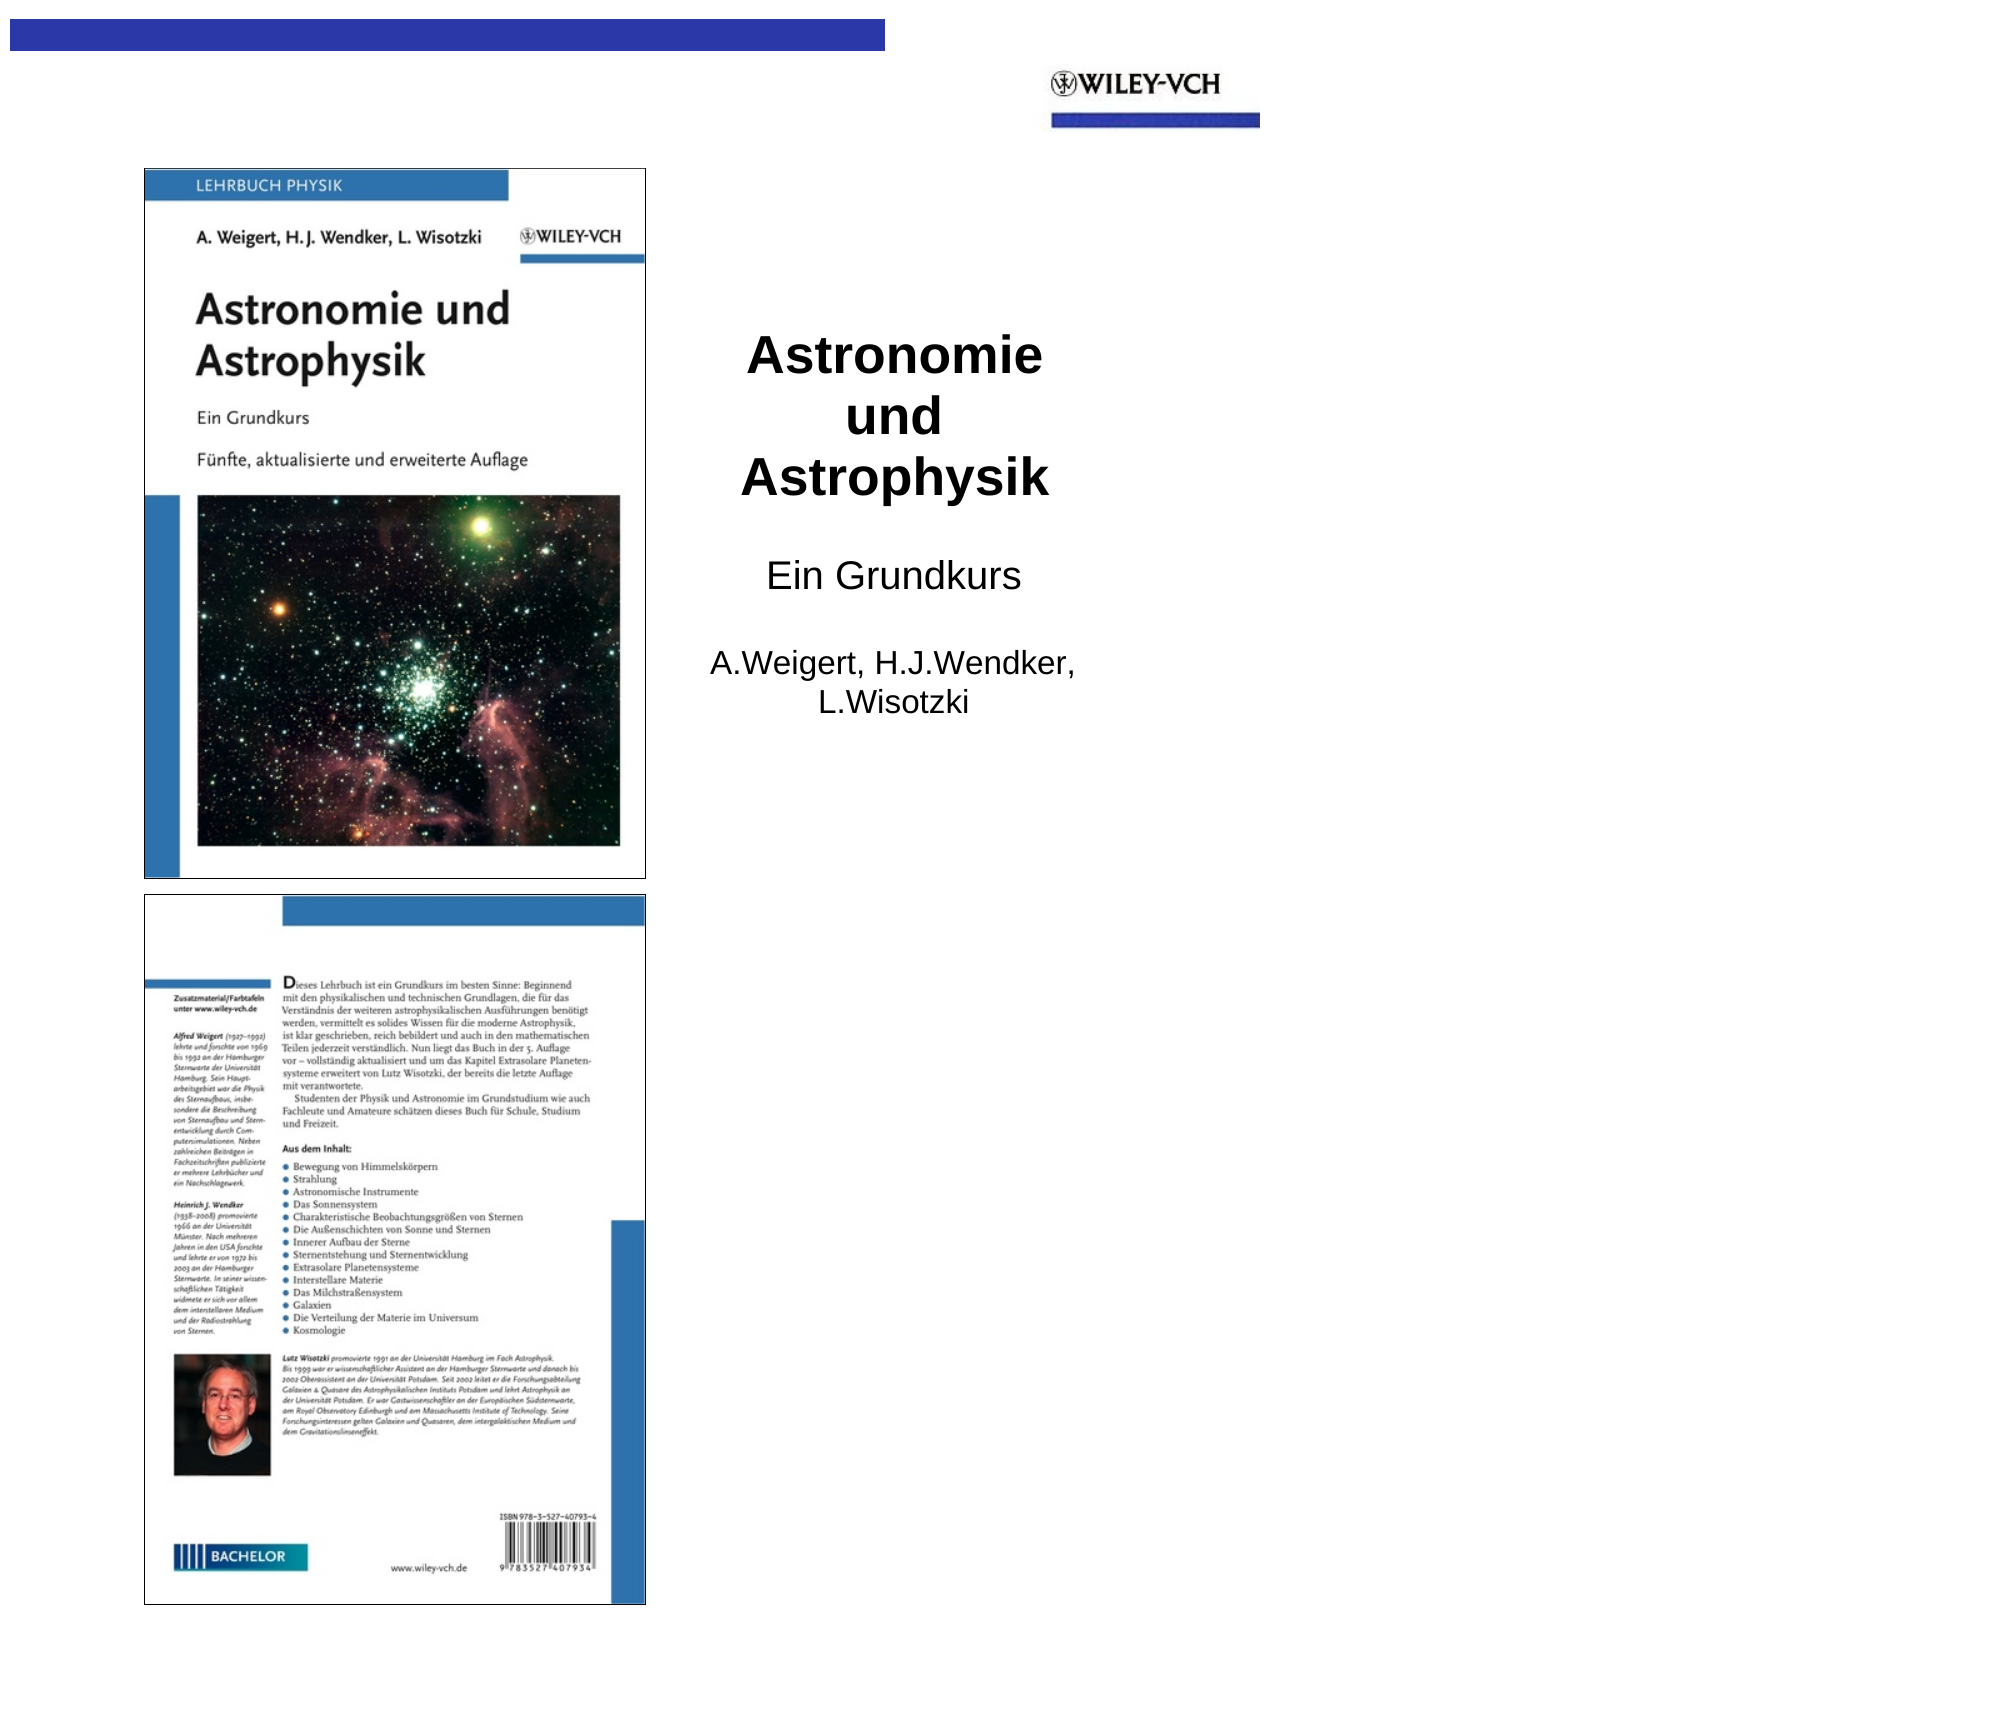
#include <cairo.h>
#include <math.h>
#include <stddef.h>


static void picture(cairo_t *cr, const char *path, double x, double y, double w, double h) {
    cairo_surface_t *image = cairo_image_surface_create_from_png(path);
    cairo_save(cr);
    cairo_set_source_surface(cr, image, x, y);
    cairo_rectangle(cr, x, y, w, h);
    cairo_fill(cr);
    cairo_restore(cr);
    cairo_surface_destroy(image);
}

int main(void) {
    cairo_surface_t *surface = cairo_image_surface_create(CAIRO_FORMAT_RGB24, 1998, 1710);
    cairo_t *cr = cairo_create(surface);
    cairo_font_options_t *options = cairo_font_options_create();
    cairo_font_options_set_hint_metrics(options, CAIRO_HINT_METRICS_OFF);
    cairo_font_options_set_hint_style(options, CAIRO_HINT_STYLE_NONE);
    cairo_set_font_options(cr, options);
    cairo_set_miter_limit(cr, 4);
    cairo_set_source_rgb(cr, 1, 1, 1);
    cairo_paint(cr);
    cairo_set_source_rgb(cr, 0.169, 0.22, 0.659);
    cairo_rectangle(cr, 10, 19, 875, 32);
    cairo_fill(cr);
    picture(cr, "img1.png", 1033, 64, 227, 68);
    cairo_rectangle(cr, 144.5, 168.5, 501, 710);
    cairo_set_source_rgb(cr, 0, 0, 0);
    cairo_set_line_width(cr, 1);
    cairo_stroke(cr);
    picture(cr, "img2.png", 145, 168, 500, 710);
    cairo_select_font_face(cr, "Liberation Sans", CAIRO_FONT_SLANT_NORMAL, CAIRO_FONT_WEIGHT_BOLD);
    cairo_set_font_size(cr, 53.5);
    cairo_move_to(cr, 746, 373);
    cairo_show_text(cr, "Astronomie");
    cairo_move_to(cr, 845, 434);
    cairo_show_text(cr, "und");
    cairo_move_to(cr, 740, 495);
    cairo_show_text(cr, "Astrophysik");
    cairo_select_font_face(cr, "Liberation Sans", CAIRO_FONT_SLANT_NORMAL, CAIRO_FONT_WEIGHT_NORMAL);
    cairo_set_font_size(cr, 40);
    cairo_move_to(cr, 766, 589);
    cairo_show_text(cr, "Ein Grundkurs");
    cairo_set_font_size(cr, 33.25);
    cairo_move_to(cr, 710, 674);
    cairo_show_text(cr, "A.Weigert, H.J.Wendker,");
    cairo_move_to(cr, 818, 713);
    cairo_show_text(cr, "L.Wisotzki");
    cairo_rectangle(cr, 144.5, 894.5, 501, 710);
    cairo_stroke(cr);
    picture(cr, "img3.png", 145, 895, 500, 709);
    cairo_surface_write_to_png(surface, "page.png");
    cairo_font_options_destroy(options);
    cairo_destroy(cr);
    cairo_surface_destroy(surface);
    return 0;
}
